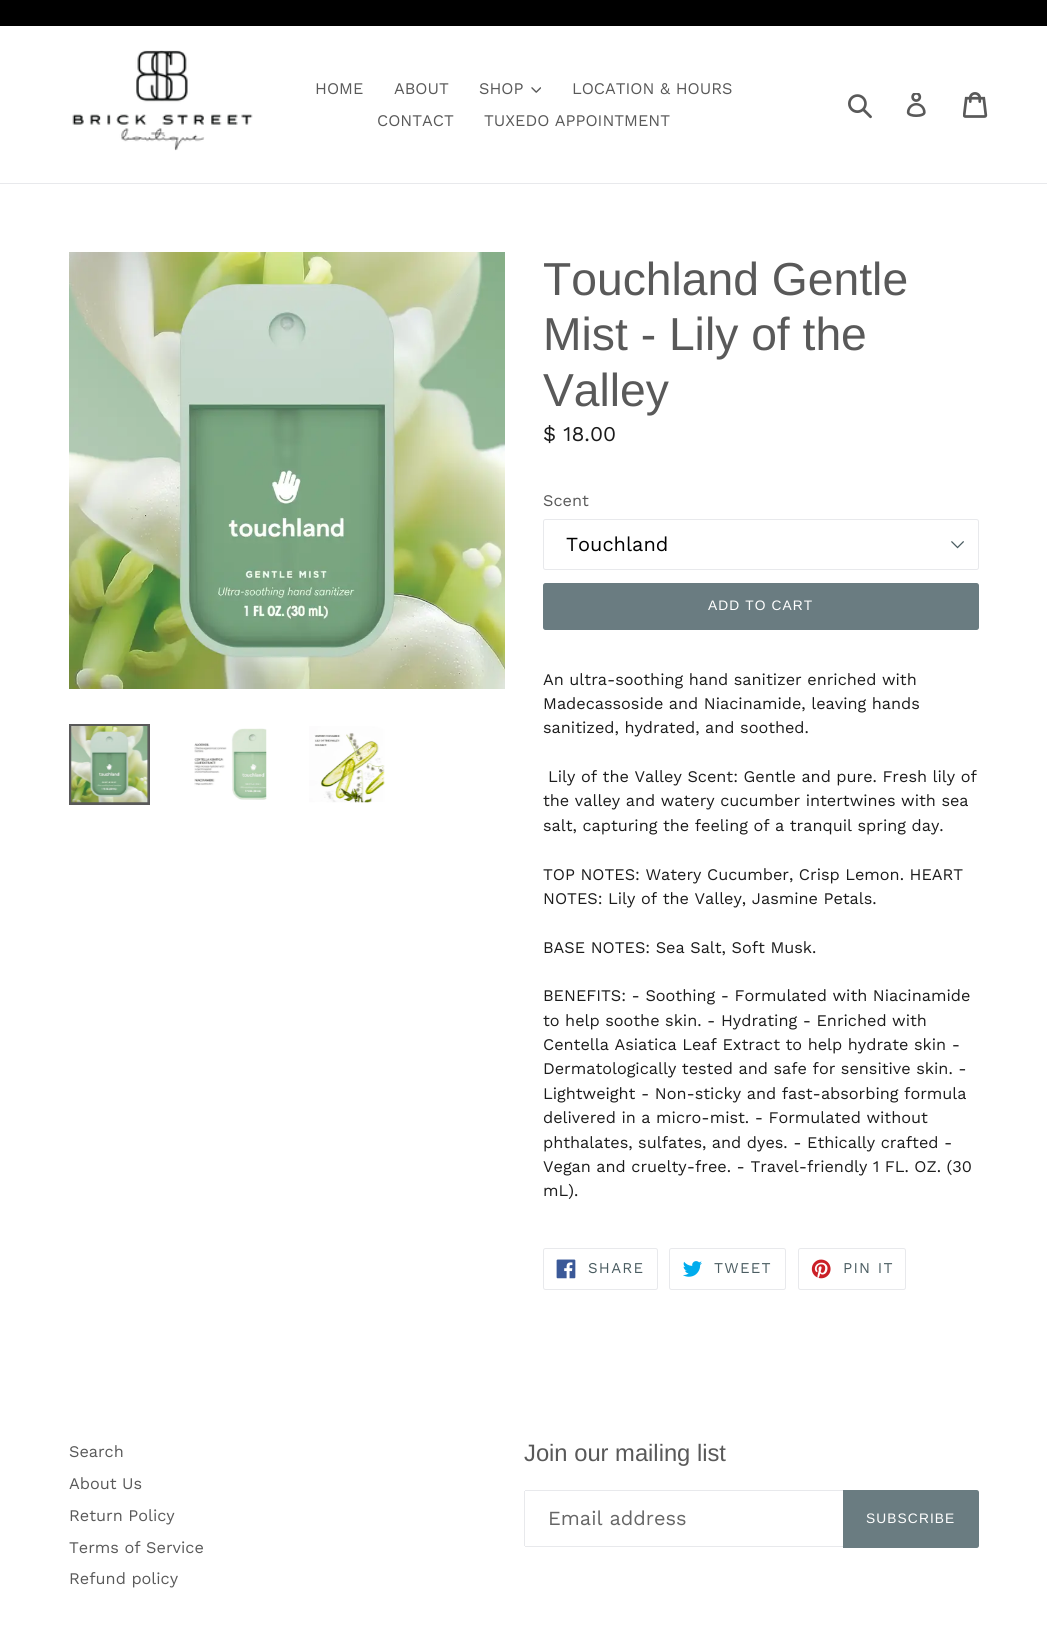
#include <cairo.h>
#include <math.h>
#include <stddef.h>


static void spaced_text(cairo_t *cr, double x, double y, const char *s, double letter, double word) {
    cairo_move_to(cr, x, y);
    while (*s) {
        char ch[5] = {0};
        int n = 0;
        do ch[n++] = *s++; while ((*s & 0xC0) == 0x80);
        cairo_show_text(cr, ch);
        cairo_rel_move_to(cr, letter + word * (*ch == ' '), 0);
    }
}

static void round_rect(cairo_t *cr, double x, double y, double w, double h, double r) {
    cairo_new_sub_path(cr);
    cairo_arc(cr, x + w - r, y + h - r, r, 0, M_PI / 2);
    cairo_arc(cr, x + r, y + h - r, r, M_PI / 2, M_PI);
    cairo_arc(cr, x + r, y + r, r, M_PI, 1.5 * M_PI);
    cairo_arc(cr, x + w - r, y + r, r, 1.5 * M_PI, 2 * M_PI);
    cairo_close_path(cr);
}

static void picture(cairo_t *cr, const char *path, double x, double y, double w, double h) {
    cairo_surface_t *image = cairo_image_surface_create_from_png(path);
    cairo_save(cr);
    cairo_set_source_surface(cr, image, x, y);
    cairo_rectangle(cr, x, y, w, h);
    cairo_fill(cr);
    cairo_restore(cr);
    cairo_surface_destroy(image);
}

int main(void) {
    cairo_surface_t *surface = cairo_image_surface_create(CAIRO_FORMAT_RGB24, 1047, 1634);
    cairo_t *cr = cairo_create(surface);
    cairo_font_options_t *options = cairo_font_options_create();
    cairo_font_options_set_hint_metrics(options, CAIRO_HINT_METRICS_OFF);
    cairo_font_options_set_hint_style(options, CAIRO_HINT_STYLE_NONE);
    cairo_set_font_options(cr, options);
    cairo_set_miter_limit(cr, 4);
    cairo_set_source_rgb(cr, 1, 1, 1);
    cairo_paint(cr);
    cairo_set_source_rgb(cr, 0, 0, 0);
    cairo_rectangle(cr, 0, 0, 1047, 26);
    cairo_fill(cr);
    cairo_set_source_rgb(cr, 0.91, 0.914, 0.922);
    cairo_rectangle(cr, 0, 183, 1047, 1);
    cairo_fill(cr);
    picture(cr, "img1.png", 72, 50, 181, 101);
    cairo_select_font_face(cr, "Work Sans", CAIRO_FONT_SLANT_NORMAL, CAIRO_FONT_WEIGHT_NORMAL);
    cairo_set_font_size(cr, 16.25);
    cairo_set_source_rgb(cr, 0.349, 0.349, 0.349);
    cairo_move_to(cr, 315, 94);
    cairo_show_text(cr, "HOME");
    cairo_move_to(cr, 394, 94);
    cairo_show_text(cr, "ABOUT");
    cairo_move_to(cr, 479, 94);
    cairo_show_text(cr, "SHOP");
    picture(cr, "img2.png", 531, 87, 10, 6);
    cairo_move_to(cr, 572, 94);
    cairo_show_text(cr, "LOCATION & HOURS");
    cairo_move_to(cr, 377, 126);
    cairo_show_text(cr, "CONTACT");
    cairo_move_to(cr, 484, 126);
    cairo_show_text(cr, "TUXEDO APPOINTMENT");
    picture(cr, "img3.png", 848, 94, 24, 25);
    picture(cr, "img4.png", 906, 93, 20, 24);
    picture(cr, "img5.png", 963, 92, 25, 26);
    picture(cr, "img6.png", 69, 252, 436, 437);
    cairo_rectangle(cr, 70.5, 725.5, 78, 78);
    cairo_set_line_width(cr, 3);
    cairo_stroke(cr);
    picture(cr, "img7.png", 71, 726, 78, 77);
    picture(cr, "img8.png", 194, 728, 73, 72);
    picture(cr, "img9.png", 309, 726, 76, 77);
    cairo_select_font_face(cr, "Liberation Sans", CAIRO_FONT_SLANT_NORMAL, CAIRO_FONT_WEIGHT_NORMAL);
    cairo_set_font_size(cr, 46.25);
    cairo_move_to(cr, 543, 295);
    cairo_show_text(cr, "Touchland Gentle");
    cairo_move_to(cr, 543, 350);
    cairo_show_text(cr, "Mist - Lily of the");
    cairo_move_to(cr, 543, 406);
    cairo_show_text(cr, "Valley");
    cairo_select_font_face(cr, "Work Sans", CAIRO_FONT_SLANT_NORMAL, CAIRO_FONT_WEIGHT_NORMAL);
    cairo_set_font_size(cr, 21);
    cairo_set_source_rgb(cr, 0.11, 0.11, 0.11);
    cairo_move_to(cr, 543, 441);
    cairo_show_text(cr, "$ 18.00");
    cairo_set_font_size(cr, 16.25);
    cairo_set_source_rgb(cr, 0.349, 0.349, 0.349);
    cairo_move_to(cr, 543, 506);
    cairo_show_text(cr, "Scent");
    picture(cr, "img10.png", 951, 541, 13, 8);
    round_rect(cr, 543.5, 519.5, 435, 50, 2);
    cairo_set_source_rgb(cr, 0.91, 0.914, 0.922);
    cairo_set_line_width(cr, 1);
    cairo_stroke(cr);
    cairo_set_font_size(cr, 20);
    cairo_set_source_rgb(cr, 0, 0, 0);
    cairo_move_to(cr, 566, 551);
    cairo_show_text(cr, "Touchland");
    cairo_set_source_rgb(cr, 0.416, 0.486, 0.506);
    round_rect(cr, 543, 583, 436, 47, 2.5);
    cairo_fill(cr);
    cairo_select_font_face(cr, "Liberation Sans", CAIRO_FONT_SLANT_NORMAL, CAIRO_FONT_WEIGHT_NORMAL);
    cairo_set_font_size(cr, 13.75);
    cairo_set_source_rgb(cr, 1, 1, 1);
    spaced_text(cr, 708, 610, "ADD TO CART", 1.1, 0);
    cairo_select_font_face(cr, "Work Sans", CAIRO_FONT_SLANT_NORMAL, CAIRO_FONT_WEIGHT_NORMAL);
    cairo_set_font_size(cr, 16.25);
    cairo_set_source_rgb(cr, 0.11, 0.11, 0.11);
    cairo_move_to(cr, 543, 685);
    cairo_show_text(cr, "An ultra-soothing hand sanitizer enriched with");
    cairo_move_to(cr, 543, 709);
    cairo_show_text(cr, "Madecassoside and Niacinamide, leaving hands");
    cairo_move_to(cr, 543, 733);
    cairo_show_text(cr, "sanitized, hydrated, and soothed.");
    cairo_move_to(cr, 548, 782);
    cairo_show_text(cr, "Lily of the Valley Scent: Gentle and pure. Fresh lily of");
    cairo_move_to(cr, 543, 806);
    cairo_show_text(cr, "the valley and watery cucumber intertwines with sea");
    cairo_move_to(cr, 543, 831);
    cairo_show_text(cr, "salt, capturing the feeling of a tranquil spring day.");
    cairo_move_to(cr, 543, 880);
    cairo_show_text(cr, "TOP NOTES: Watery Cucumber, Crisp Lemon. HEART");
    cairo_move_to(cr, 543, 904);
    cairo_show_text(cr, "NOTES: Lily of the Valley, Jasmine Petals.");
    cairo_move_to(cr, 543, 953);
    cairo_show_text(cr, "BASE NOTES: Sea Salt, Soft Musk.");
    cairo_move_to(cr, 543, 1001);
    cairo_show_text(cr, "BENEFITS: - Soothing - Formulated with Niacinamide");
    cairo_move_to(cr, 543, 1026);
    cairo_show_text(cr, "to help soothe skin. - Hydrating - Enriched with");
    cairo_move_to(cr, 543, 1050);
    cairo_show_text(cr, "Centella Asiatica Leaf Extract to help hydrate skin -");
    cairo_move_to(cr, 543, 1074);
    cairo_show_text(cr, "Dermatologically tested and safe for sensitive skin. -");
    cairo_move_to(cr, 543, 1099);
    cairo_show_text(cr, "Lightweight - Non-sticky and fast-absorbing formula");
    cairo_move_to(cr, 543, 1123);
    cairo_show_text(cr, "delivered in a micro-mist. - Formulated without");
    cairo_move_to(cr, 543, 1148);
    cairo_show_text(cr, "phthalates, sulfates, and dyes. - Ethically crafted -");
    cairo_move_to(cr, 543, 1172);
    cairo_show_text(cr, "Vegan and cruelty-free. - Travel-friendly 1 FL. OZ. (30");
    cairo_move_to(cr, 543, 1196);
    cairo_show_text(cr, "mL).");
    round_rect(cr, 543.5, 1248.5, 114, 41, 2);
    cairo_set_source_rgb(cr, 0.91, 0.914, 0.922);
    cairo_stroke(cr);
    picture(cr, "img11.png", 556, 1259, 20, 20);
    cairo_set_font_size(cr, 15);
    cairo_set_source_rgb(cr, 0.29, 0.361, 0.38);
    spaced_text(cr, 588, 1273, "SHARE", 1.25, 0);
    round_rect(cr, 669.5, 1248.5, 116, 41, 2);
    cairo_set_source_rgb(cr, 0.91, 0.914, 0.922);
    cairo_stroke(cr);
    picture(cr, "img12.png", 683, 1261, 19, 16);
    cairo_set_source_rgb(cr, 0.29, 0.361, 0.38);
    spaced_text(cr, 714, 1273, "TWEET", 1.25, 0);
    round_rect(cr, 798.5, 1248.5, 107, 41, 2);
    cairo_set_source_rgb(cr, 0.91, 0.914, 0.922);
    cairo_stroke(cr);
    picture(cr, "img13.png", 811, 1259, 20, 20);
    cairo_set_source_rgb(cr, 0.29, 0.361, 0.38);
    spaced_text(cr, 843, 1273, "PIN IT", 1.25, 0);
    cairo_set_font_size(cr, 16.25);
    cairo_set_source_rgb(cr, 0.349, 0.349, 0.349);
    cairo_move_to(cr, 69, 1457);
    cairo_show_text(cr, "Search");
    cairo_move_to(cr, 69, 1489);
    cairo_show_text(cr, "About Us");
    cairo_move_to(cr, 69, 1521);
    cairo_show_text(cr, "Return Policy");
    cairo_move_to(cr, 69, 1553);
    cairo_show_text(cr, "Terms of Service");
    cairo_move_to(cr, 69, 1584);
    cairo_show_text(cr, "Refund policy");
    cairo_select_font_face(cr, "Liberation Sans", CAIRO_FONT_SLANT_NORMAL, CAIRO_FONT_WEIGHT_NORMAL);
    cairo_set_font_size(cr, 23.75);
    cairo_move_to(cr, 524, 1461);
    cairo_show_text(cr, "Join our mailing list");
    cairo_set_source_rgb(cr, 0.91, 0.914, 0.922);
    cairo_rectangle(cr, 525, 1490, 318, 1);
    cairo_fill(cr);
    cairo_rectangle(cr, 525, 1546, 318, 1);
    cairo_fill(cr);
    cairo_rectangle(cr, 524, 1491, 1, 55);
    cairo_fill(cr);
    cairo_select_font_face(cr, "Work Sans", CAIRO_FONT_SLANT_NORMAL, CAIRO_FONT_WEIGHT_NORMAL);
    cairo_set_font_size(cr, 20);
    cairo_set_source_rgb(cr, 0.4, 0.4, 0.4);
    cairo_move_to(cr, 548, 1525);
    cairo_show_text(cr, "Email address");
    cairo_set_source_rgb(cr, 0.416, 0.486, 0.506);
    cairo_new_path(cr);
    cairo_move_to(cr, 843, 1490);
    cairo_line_to(cr, 976.5, 1490);
    cairo_curve_to(cr, 978, 1490, 979, 1491, 979, 1492.5);
    cairo_line_to(cr, 979, 1545.5);
    cairo_curve_to(cr, 979, 1547, 978, 1548, 976.5, 1548);
    cairo_line_to(cr, 843, 1548);
    cairo_close_path(cr);
    cairo_fill(cr);
    cairo_select_font_face(cr, "Liberation Sans", CAIRO_FONT_SLANT_NORMAL, CAIRO_FONT_WEIGHT_NORMAL);
    cairo_set_font_size(cr, 13.75);
    cairo_set_source_rgb(cr, 1, 1, 1);
    spaced_text(cr, 866, 1523, "SUBSCRIBE", 1.1, 0);
    cairo_surface_write_to_png(surface, "page.png");
    cairo_font_options_destroy(options);
    cairo_destroy(cr);
    cairo_surface_destroy(surface);
    return 0;
}
